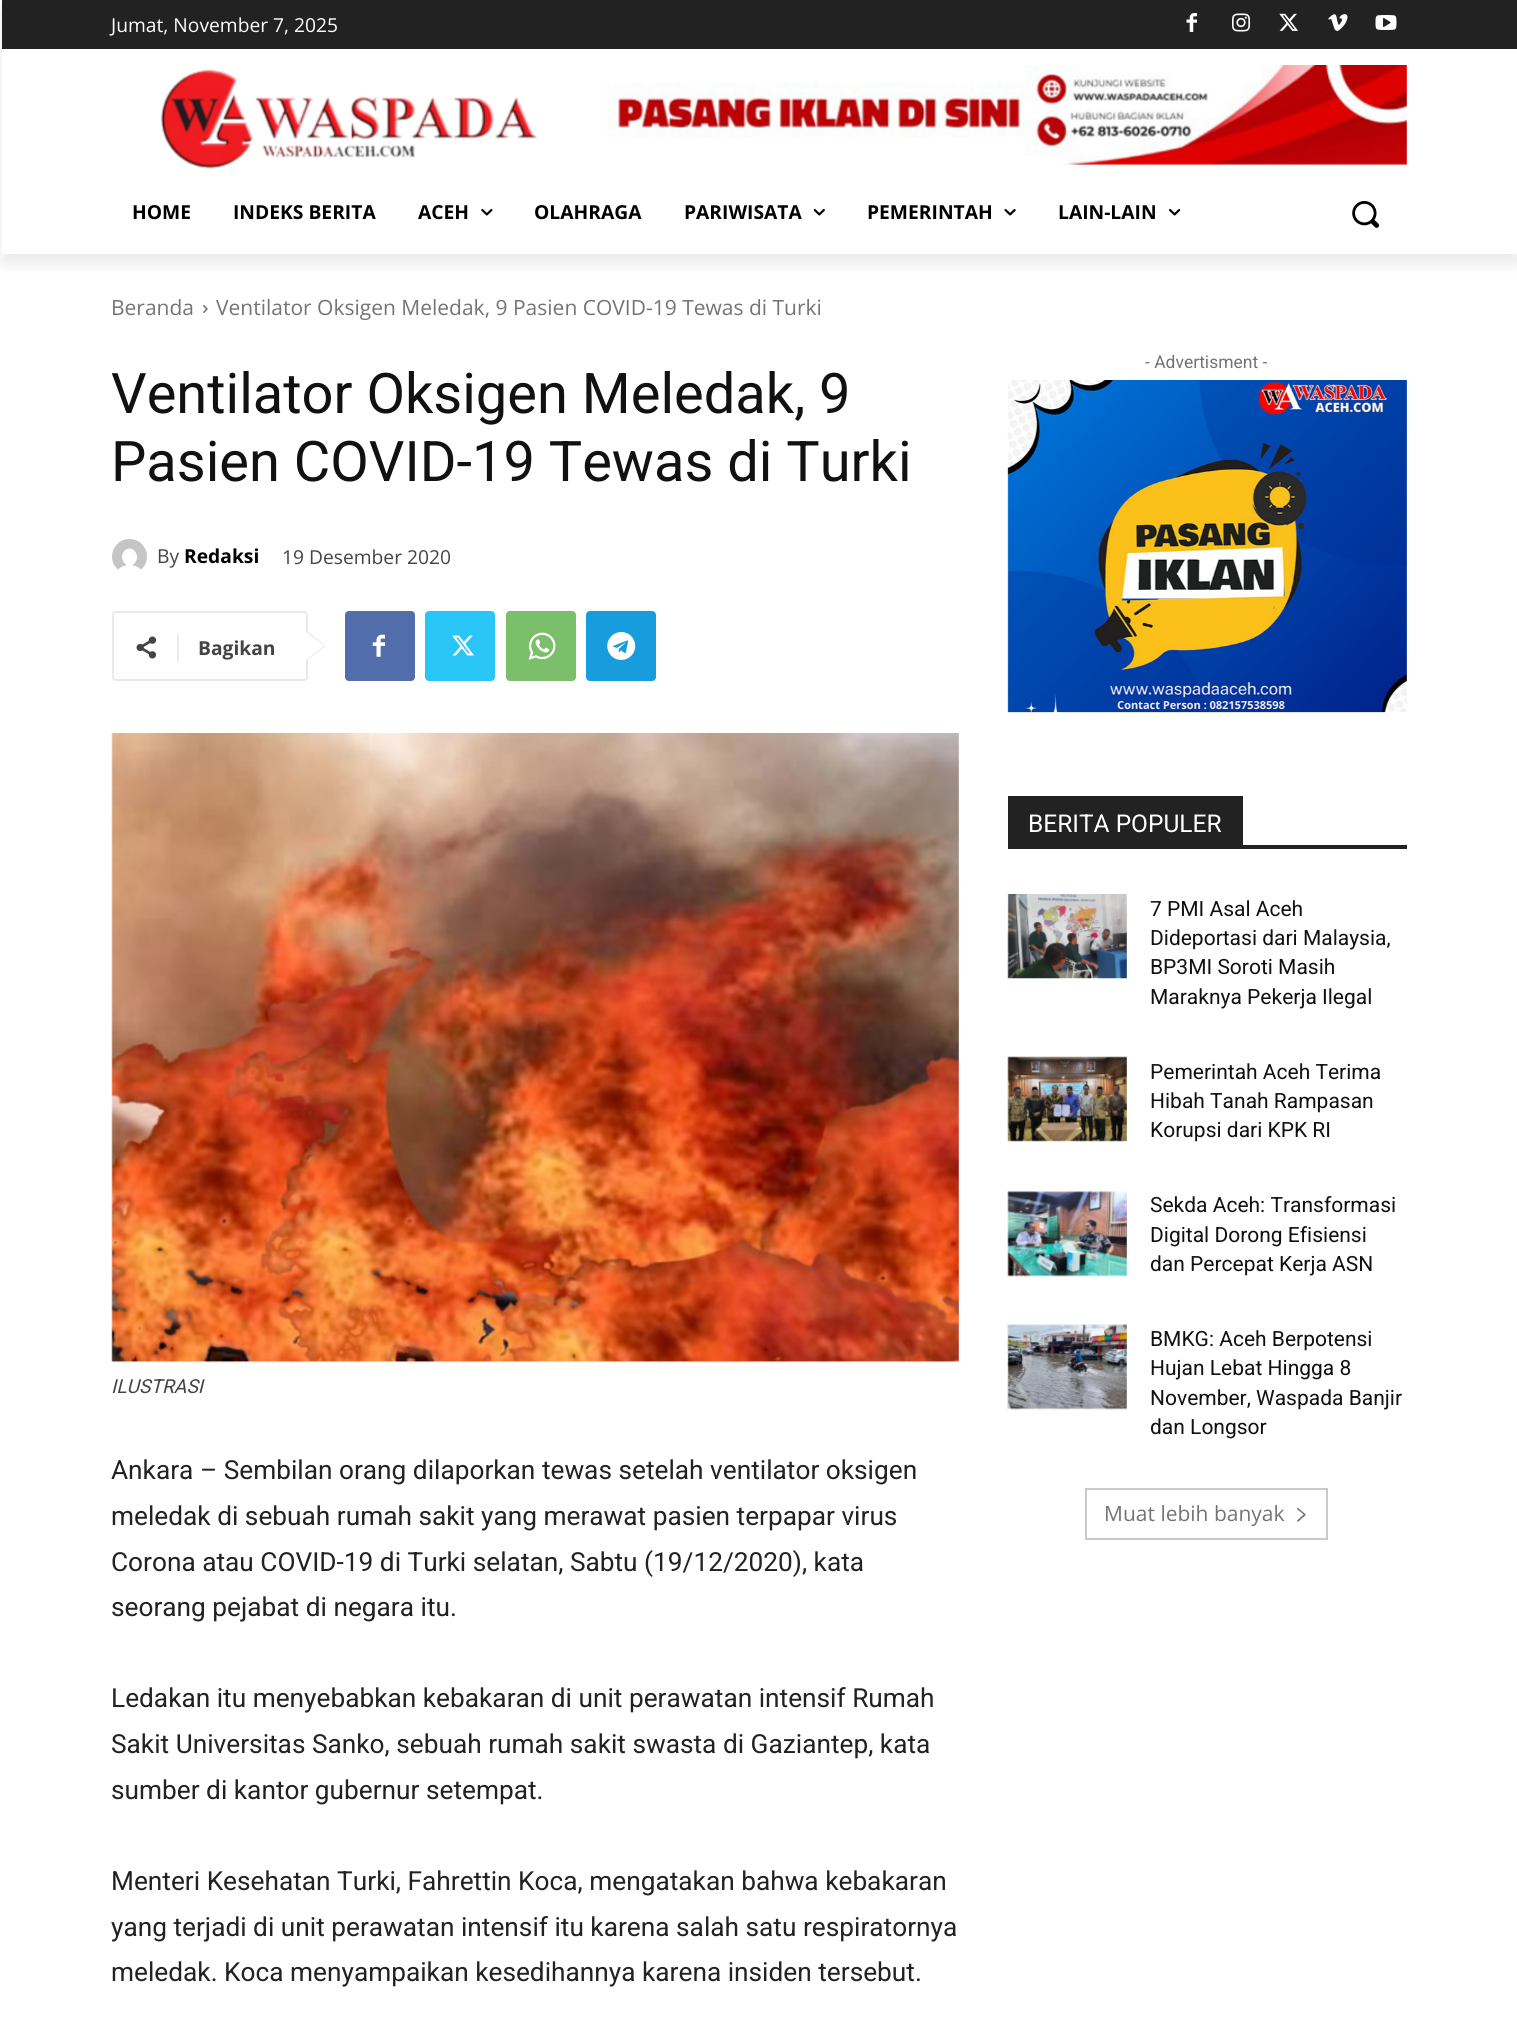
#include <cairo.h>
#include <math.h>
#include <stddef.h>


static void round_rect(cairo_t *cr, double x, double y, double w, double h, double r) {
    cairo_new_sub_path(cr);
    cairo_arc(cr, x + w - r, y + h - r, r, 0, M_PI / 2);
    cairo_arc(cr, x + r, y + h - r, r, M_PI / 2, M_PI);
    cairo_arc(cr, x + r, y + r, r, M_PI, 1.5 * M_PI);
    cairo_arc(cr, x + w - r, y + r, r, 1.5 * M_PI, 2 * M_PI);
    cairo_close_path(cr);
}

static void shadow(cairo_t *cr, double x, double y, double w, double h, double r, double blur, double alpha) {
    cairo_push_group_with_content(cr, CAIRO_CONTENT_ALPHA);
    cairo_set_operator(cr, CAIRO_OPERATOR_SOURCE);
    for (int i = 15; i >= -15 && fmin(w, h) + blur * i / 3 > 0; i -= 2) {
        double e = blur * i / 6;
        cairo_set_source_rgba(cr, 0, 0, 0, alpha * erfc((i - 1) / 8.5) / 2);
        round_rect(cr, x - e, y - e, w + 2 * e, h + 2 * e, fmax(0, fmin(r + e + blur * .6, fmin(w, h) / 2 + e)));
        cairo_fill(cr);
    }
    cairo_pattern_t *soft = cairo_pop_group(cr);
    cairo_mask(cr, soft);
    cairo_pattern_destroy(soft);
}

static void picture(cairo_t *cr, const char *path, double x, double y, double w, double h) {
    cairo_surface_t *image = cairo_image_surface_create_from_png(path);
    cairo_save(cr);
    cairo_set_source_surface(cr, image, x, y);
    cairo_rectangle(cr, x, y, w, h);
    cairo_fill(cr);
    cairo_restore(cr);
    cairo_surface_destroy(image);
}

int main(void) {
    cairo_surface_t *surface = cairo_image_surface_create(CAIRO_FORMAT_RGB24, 1517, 2021);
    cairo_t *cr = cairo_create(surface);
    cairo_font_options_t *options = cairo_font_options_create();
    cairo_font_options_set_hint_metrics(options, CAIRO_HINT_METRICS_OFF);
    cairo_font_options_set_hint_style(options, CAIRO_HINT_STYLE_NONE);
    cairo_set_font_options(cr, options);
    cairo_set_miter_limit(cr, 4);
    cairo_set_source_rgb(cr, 1, 1, 1);
    cairo_paint(cr);
    cairo_set_source_rgb(cr, 0.133, 0.133, 0.133);
    cairo_rectangle(cr, 2, 0, 1515, 49);
    cairo_fill(cr);
    picture(cr, "img1.png", 1186, 13, 11, 19);
    picture(cr, "img2.png", 1232, 13, 18, 19);
    picture(cr, "img3.png", 1279, 13, 19, 18);
    picture(cr, "img4.png", 1328, 14, 20, 17);
    picture(cr, "img5.png", 1375, 15, 22, 15);
    picture(cr, "img6.png", 160, 69, 378, 100);
    picture(cr, "img7.png", 606, 65, 801, 100);
    cairo_save(cr);
    cairo_set_fill_rule(cr, CAIRO_FILL_RULE_EVEN_ODD);
    cairo_new_path(cr);
    cairo_move_to(cr, 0, 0);
    cairo_line_to(cr, 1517, 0);
    cairo_line_to(cr, 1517, 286);
    cairo_line_to(cr, 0, 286);
    cairo_close_path(cr);
    cairo_move_to(cr, 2, 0);
    cairo_line_to(cr, 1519, 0);
    cairo_line_to(cr, 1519, 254);
    cairo_line_to(cr, 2, 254);
    cairo_close_path(cr);
    cairo_clip(cr);
    cairo_set_source_rgb(cr, 0, 0, 0);
    shadow(cr, 2, 11, 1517, 253, 0, 7, 0.08);
    cairo_restore(cr);
    cairo_select_font_face(cr, "Open Sans", CAIRO_FONT_SLANT_NORMAL, CAIRO_FONT_WEIGHT_NORMAL);
    cairo_set_font_size(cr, 19.25);
    cairo_set_source_rgb(cr, 1, 1, 1);
    cairo_move_to(cr, 111, 32);
    cairo_show_text(cr, "Jumat, November 7, 2025");
    cairo_select_font_face(cr, "Open Sans", CAIRO_FONT_SLANT_NORMAL, CAIRO_FONT_WEIGHT_BOLD);
    cairo_set_source_rgb(cr, 0, 0, 0);
    cairo_move_to(cr, 132, 219);
    cairo_show_text(cr, "HOME");
    cairo_move_to(cr, 233, 219);
    cairo_show_text(cr, "INDEKS BERITA");
    cairo_move_to(cr, 418, 219);
    cairo_show_text(cr, "ACEH");
    picture(cr, "img8.png", 481, 208, 12, 8);
    cairo_move_to(cr, 534, 219);
    cairo_show_text(cr, "OLAHRAGA");
    cairo_move_to(cr, 684, 219);
    cairo_show_text(cr, "PARIWISATA");
    picture(cr, "img9.png", 813, 208, 12, 8);
    cairo_move_to(cr, 867, 219);
    cairo_show_text(cr, "PEMERINTAH");
    picture(cr, "img10.png", 1004, 208, 12, 8);
    cairo_move_to(cr, 1058, 219);
    cairo_show_text(cr, "LAIN-LAIN");
    picture(cr, "img11.png", 1169, 208, 12, 8);
    picture(cr, "img12.png", 1352, 201, 28, 27);
    cairo_select_font_face(cr, "Open Sans", CAIRO_FONT_SLANT_NORMAL, CAIRO_FONT_WEIGHT_NORMAL);
    cairo_set_font_size(cr, 21);
    cairo_set_source_rgb(cr, 0.455, 0.455, 0.455);
    cairo_move_to(cr, 111, 315);
    cairo_show_text(cr, "Beranda");
    picture(cr, "img13.png", 203, 305, 5, 8);
    cairo_move_to(cr, 216, 315);
    cairo_show_text(cr, "Ventilator Oksigen Meledak, 9 Pasien COVID-19 Tewas di Turki");
    cairo_select_font_face(cr, "Roboto", CAIRO_FONT_SLANT_NORMAL, CAIRO_FONT_WEIGHT_NORMAL);
    cairo_set_font_size(cr, 56);
    cairo_set_source_rgb(cr, 0.067, 0.067, 0.067);
    cairo_move_to(cr, 111, 413);
    cairo_show_text(cr, "Ventilator Oksigen Meledak, 9");
    cairo_move_to(cr, 111, 481);
    cairo_show_text(cr, "Pasien COVID-19 Tewas di Turki");
    picture(cr, "img14.png", 112, 539, 35, 31);
    cairo_select_font_face(cr, "Open Sans", CAIRO_FONT_SLANT_NORMAL, CAIRO_FONT_WEIGHT_NORMAL);
    cairo_set_font_size(cr, 19.25);
    cairo_set_source_rgb(cr, 0.267, 0.267, 0.267);
    cairo_move_to(cr, 157, 563);
    cairo_show_text(cr, "By");
    cairo_select_font_face(cr, "Open Sans", CAIRO_FONT_SLANT_NORMAL, CAIRO_FONT_WEIGHT_BOLD);
    cairo_set_source_rgb(cr, 0, 0, 0);
    cairo_move_to(cr, 184, 563);
    cairo_show_text(cr, "Redaksi");
    cairo_select_font_face(cr, "Open Sans", CAIRO_FONT_SLANT_NORMAL, CAIRO_FONT_WEIGHT_NORMAL);
    cairo_set_source_rgb(cr, 0.267, 0.267, 0.267);
    cairo_move_to(cr, 282, 564);
    cairo_show_text(cr, "19 Desember 2020");
    round_rect(cr, 113, 612, 194, 68, 3);
    cairo_set_source_rgb(cr, 0.914, 0.914, 0.914);
    cairo_stroke(cr);
    cairo_new_path(cr);
    cairo_move_to(cr, 306, 661.5);
    cairo_line_to(cr, 306, 630);
    cairo_line_to(cr, 325.5, 646);
    cairo_close_path(cr);
    cairo_fill(cr);
    picture(cr, "img15.png", 136, 636, 21, 23);
    cairo_set_source_rgb(cr, 0.922, 0.922, 0.922);
    cairo_rectangle(cr, 177, 634, 2, 28);
    cairo_fill(cr);
    cairo_select_font_face(cr, "Open Sans", CAIRO_FONT_SLANT_NORMAL, CAIRO_FONT_WEIGHT_BOLD);
    cairo_set_source_rgb(cr, 0.267, 0.267, 0.267);
    cairo_move_to(cr, 198, 655);
    cairo_show_text(cr, "Bagikan");
    cairo_set_source_rgb(cr, 1, 1, 1);
    cairo_new_path(cr);
    cairo_move_to(cr, 306, 660);
    cairo_line_to(cr, 306, 632);
    cairo_line_to(cr, 324, 646);
    cairo_close_path(cr);
    cairo_fill(cr);
    cairo_set_source_rgb(cr, 0.318, 0.431, 0.671);
    round_rect(cr, 345, 611, 70, 70, 4);
    cairo_fill(cr);
    picture(cr, "img16.png", 372, 634, 13, 23);
    cairo_set_source_rgb(cr, 0.161, 0.773, 0.965);
    round_rect(cr, 425, 611, 70, 70, 4);
    cairo_fill(cr);
    picture(cr, "img17.png", 452, 635, 22, 21);
    cairo_set_source_rgb(cr, 0.482, 0.749, 0.416);
    round_rect(cr, 506, 611, 70, 70, 4);
    cairo_fill(cr);
    picture(cr, "img18.png", 528, 632, 28, 28);
    cairo_set_source_rgb(cr, 0.09, 0.612, 0.871);
    round_rect(cr, 586, 611, 70, 70, 4);
    cairo_fill(cr);
    picture(cr, "img19.png", 607, 632, 29, 28);
    picture(cr, "img20.png", 111, 733, 848, 630);
    cairo_select_font_face(cr, "Roboto", CAIRO_FONT_SLANT_ITALIC, CAIRO_FONT_WEIGHT_NORMAL);
    cairo_set_source_rgb(cr, 0.267, 0.267, 0.267);
    cairo_move_to(cr, 111, 1393);
    cairo_show_text(cr, "ILUSTRASI");
    cairo_select_font_face(cr, "Roboto", CAIRO_FONT_SLANT_NORMAL, CAIRO_FONT_WEIGHT_NORMAL);
    cairo_set_font_size(cr, 26.25);
    cairo_set_source_rgb(cr, 0.133, 0.133, 0.133);
    cairo_move_to(cr, 111, 1479);
    cairo_show_text(cr, "Ankara – Sembilan orang dilaporkan tewas setelah ventilator oksigen");
    cairo_move_to(cr, 111, 1525);
    cairo_show_text(cr, "meledak di sebuah rumah sakit yang merawat pasien terpapar virus");
    cairo_move_to(cr, 111, 1571);
    cairo_show_text(cr, "Corona atau COVID-19 di Turki selatan, Sabtu (19/12/2020), kata");
    cairo_move_to(cr, 111, 1616);
    cairo_show_text(cr, "seorang pejabat di negara itu.");
    cairo_move_to(cr, 111, 1707);
    cairo_show_text(cr, "Ledakan itu menyebabkan kebakaran di unit perawatan intensif Rumah");
    cairo_move_to(cr, 111, 1753);
    cairo_show_text(cr, "Sakit Universitas Sanko, sebuah rumah sakit swasta di Gaziantep, kata");
    cairo_move_to(cr, 111, 1799);
    cairo_show_text(cr, "sumber di kantor gubernur setempat.");
    cairo_move_to(cr, 111, 1890);
    cairo_show_text(cr, "Menteri Kesehatan Turki, Fahrettin Koca, mengatakan bahwa kebakaran");
    cairo_move_to(cr, 111, 1936);
    cairo_show_text(cr, "yang terjadi di unit perawatan intensif itu karena salah satu respiratornya");
    cairo_move_to(cr, 111, 1981);
    cairo_show_text(cr, "meledak. Koca menyampaikan kesedihannya karena insiden tersebut.");
    cairo_set_font_size(cr, 17.5);
    cairo_set_source_rgb(cr, 0.455, 0.455, 0.455);
    cairo_move_to(cr, 1145, 368);
    cairo_show_text(cr, "- Advertisment -");
    picture(cr, "img21.png", 1007, 380, 400, 333);
    cairo_set_source_rgb(cr, 0.133, 0.133, 0.133);
    cairo_rectangle(cr, 1008, 845, 399, 4);
    cairo_fill(cr);
    cairo_rectangle(cr, 1008, 796, 235, 49);
    cairo_fill(cr);
    cairo_set_font_size(cr, 24.5);
    cairo_set_source_rgb(cr, 1, 1, 1);
    cairo_move_to(cr, 1028, 832);
    cairo_show_text(cr, "BERITA POPULER");
    picture(cr, "img22.png", 1007, 894, 120, 85);
    cairo_set_font_size(cr, 21);
    cairo_set_source_rgb(cr, 0.067, 0.067, 0.067);
    cairo_move_to(cr, 1150, 916);
    cairo_show_text(cr, "7 PMI Asal Aceh");
    cairo_move_to(cr, 1150, 945);
    cairo_show_text(cr, "Dideportasi dari Malaysia,");
    cairo_move_to(cr, 1150, 974);
    cairo_show_text(cr, "BP3MI Soroti Masih");
    cairo_move_to(cr, 1150, 1004);
    cairo_show_text(cr, "Maraknya Pekerja Ilegal");
    picture(cr, "img23.png", 1007, 1056, 120, 86);
    cairo_move_to(cr, 1150, 1079);
    cairo_show_text(cr, "Pemerintah Aceh Terima");
    cairo_move_to(cr, 1150, 1108);
    cairo_show_text(cr, "Hibah Tanah Rampasan");
    cairo_move_to(cr, 1150, 1137);
    cairo_show_text(cr, "Korupsi dari KPK RI");
    picture(cr, "img24.png", 1007, 1191, 120, 86);
    cairo_move_to(cr, 1150, 1212);
    cairo_show_text(cr, "Sekda Aceh: Transformasi");
    cairo_move_to(cr, 1150, 1242);
    cairo_show_text(cr, "Digital Dorong Efisiensi");
    cairo_move_to(cr, 1150, 1271);
    cairo_show_text(cr, "dan Percepat Kerja ASN");
    picture(cr, "img25.png", 1007, 1324, 120, 86);
    cairo_move_to(cr, 1150, 1346);
    cairo_show_text(cr, "BMKG: Aceh Berpotensi");
    cairo_move_to(cr, 1150, 1375);
    cairo_show_text(cr, "Hujan Lebat Hingga 8");
    cairo_move_to(cr, 1150, 1405);
    cairo_show_text(cr, "November, Waspada Banjir");
    cairo_move_to(cr, 1150, 1434);
    cairo_show_text(cr, "dan Longsor");
    cairo_rectangle(cr, 1086, 1489, 241, 50);
    cairo_set_source_rgb(cr, 0.788, 0.788, 0.788);
    cairo_stroke(cr);
    cairo_select_font_face(cr, "Open Sans", CAIRO_FONT_SLANT_NORMAL, CAIRO_FONT_WEIGHT_NORMAL);
    cairo_set_source_rgb(cr, 0.455, 0.455, 0.455);
    cairo_move_to(cr, 1104, 1521);
    cairo_show_text(cr, "Muat lebih banyak");
    picture(cr, "img26.png", 1297, 1507, 9, 15);
    cairo_surface_write_to_png(surface, "page.png");
    cairo_font_options_destroy(options);
    cairo_destroy(cr);
    cairo_surface_destroy(surface);
    return 0;
}
